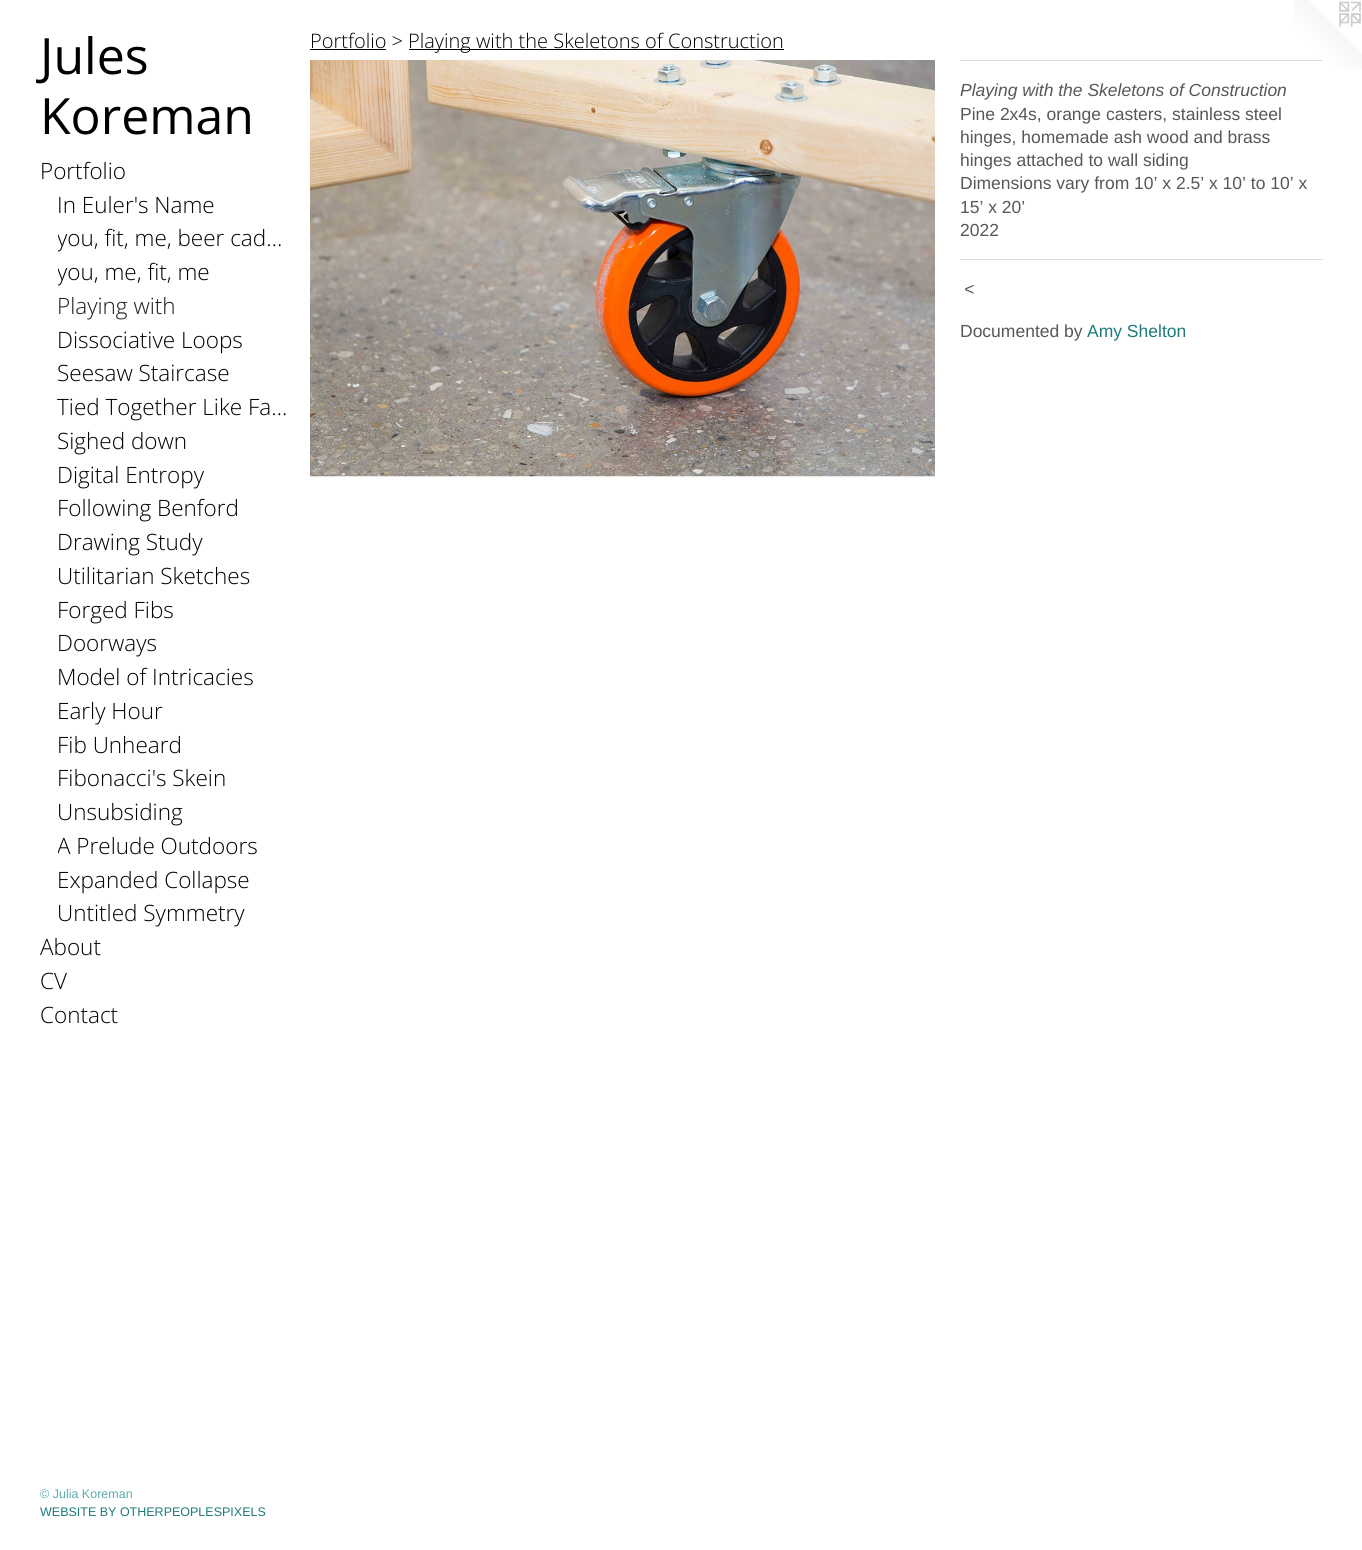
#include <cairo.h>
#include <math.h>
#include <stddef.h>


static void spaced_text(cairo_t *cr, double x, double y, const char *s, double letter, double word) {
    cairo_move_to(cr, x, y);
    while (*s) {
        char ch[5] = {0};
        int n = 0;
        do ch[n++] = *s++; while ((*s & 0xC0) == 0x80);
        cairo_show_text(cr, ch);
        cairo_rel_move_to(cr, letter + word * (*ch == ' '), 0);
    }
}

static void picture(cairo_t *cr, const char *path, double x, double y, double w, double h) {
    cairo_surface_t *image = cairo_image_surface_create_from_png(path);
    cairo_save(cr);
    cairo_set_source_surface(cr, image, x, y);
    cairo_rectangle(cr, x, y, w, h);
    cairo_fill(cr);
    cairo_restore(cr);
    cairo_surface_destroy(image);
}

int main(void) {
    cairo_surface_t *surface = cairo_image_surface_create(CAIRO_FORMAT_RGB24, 1362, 1550);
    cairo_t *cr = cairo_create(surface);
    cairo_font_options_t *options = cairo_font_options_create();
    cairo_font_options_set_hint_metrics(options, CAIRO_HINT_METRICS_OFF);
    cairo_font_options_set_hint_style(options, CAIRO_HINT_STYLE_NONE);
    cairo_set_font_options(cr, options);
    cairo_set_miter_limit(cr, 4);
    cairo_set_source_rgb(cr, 1, 1, 1);
    cairo_paint(cr);
    cairo_select_font_face(cr, "Open Sans", CAIRO_FONT_SLANT_NORMAL, CAIRO_FONT_WEIGHT_NORMAL);
    cairo_set_font_size(cr, 50);
    cairo_set_source_rgb(cr, 0, 0, 0);
    cairo_move_to(cr, 40, 74);
    cairo_show_text(cr, "Jules");
    cairo_move_to(cr, 40, 134);
    cairo_show_text(cr, "Koreman");
    cairo_select_font_face(cr, "Open Sans Light", CAIRO_FONT_SLANT_NORMAL, CAIRO_FONT_WEIGHT_NORMAL);
    cairo_set_font_size(cr, 22.5);
    cairo_move_to(cr, 40, 179);
    cairo_show_text(cr, "Portfolio");
    cairo_move_to(cr, 57, 213);
    cairo_show_text(cr, "In Euler's Name");
    cairo_save(cr);
    cairo_rectangle(cr, 58, 221, 232, 34);
    cairo_clip(cr);
    cairo_move_to(cr, 57, 246);
    cairo_show_text(cr, "you, fit, me, beer cad…");
    cairo_restore(cr);
    cairo_save(cr);
    cairo_rectangle(cr, 58, 255, 232, 34);
    cairo_clip(cr);
    cairo_move_to(cr, 57, 280);
    cairo_show_text(cr, "you, me, fit, me");
    cairo_restore(cr);
    cairo_set_source_rgb(cr, 0.102, 0.102, 0.102);
    cairo_move_to(cr, 57, 314);
    cairo_show_text(cr, "Playing with");
    cairo_set_source_rgb(cr, 0, 0, 0);
    cairo_move_to(cr, 57, 348);
    cairo_show_text(cr, "Dissociative Loops");
    cairo_move_to(cr, 57, 381);
    cairo_show_text(cr, "Seesaw Staircase");
    cairo_move_to(cr, 57, 415);
    cairo_show_text(cr, "Tied Together Like Fa…");
    cairo_move_to(cr, 57, 449);
    cairo_show_text(cr, "Sighed down");
    cairo_move_to(cr, 57, 483);
    cairo_show_text(cr, "Digital Entropy");
    cairo_move_to(cr, 57, 516);
    cairo_show_text(cr, "Following Benford");
    cairo_move_to(cr, 57, 550);
    cairo_show_text(cr, "Drawing Study");
    cairo_move_to(cr, 57, 584);
    cairo_show_text(cr, "Utilitarian Sketches");
    cairo_move_to(cr, 57, 618);
    cairo_show_text(cr, "Forged Fibs");
    cairo_move_to(cr, 57, 651);
    cairo_show_text(cr, "Doorways");
    cairo_move_to(cr, 57, 685);
    cairo_show_text(cr, "Model of Intricacies");
    cairo_move_to(cr, 57, 719);
    cairo_show_text(cr, "Early Hour");
    cairo_move_to(cr, 57, 753);
    cairo_show_text(cr, "Fib Unheard");
    cairo_move_to(cr, 57, 786);
    cairo_show_text(cr, "Fibonacci's Skein");
    cairo_move_to(cr, 57, 820);
    cairo_show_text(cr, "Unsubsiding");
    cairo_save(cr);
    cairo_rectangle(cr, 58, 829, 232, 34);
    cairo_clip(cr);
    cairo_move_to(cr, 57, 854);
    cairo_show_text(cr, "A Prelude Outdoors");
    cairo_restore(cr);
    cairo_move_to(cr, 57, 888);
    cairo_show_text(cr, "Expanded Collapse");
    cairo_move_to(cr, 57, 921);
    cairo_show_text(cr, "Untitled Symmetry");
    cairo_move_to(cr, 40, 955);
    cairo_show_text(cr, "About");
    cairo_move_to(cr, 40, 989);
    cairo_show_text(cr, "CV");
    cairo_move_to(cr, 40, 1023);
    cairo_show_text(cr, "Contact");
    cairo_select_font_face(cr, "Liberation Sans", CAIRO_FONT_SLANT_NORMAL, CAIRO_FONT_WEIGHT_NORMAL);
    cairo_set_font_size(cr, 12.5);
    cairo_set_source_rgb(cr, 0.365, 0.671, 0.671);
    cairo_move_to(cr, 40, 1498);
    cairo_show_text(cr, "© Julia Koreman");
    cairo_set_source_rgb(cr, 0.118, 0.478, 0.478);
    cairo_move_to(cr, 40, 1516);
    cairo_show_text(cr, "WEBSITE BY OTHERPEOPLESPIXELS");
    cairo_select_font_face(cr, "Open Sans Light", CAIRO_FONT_SLANT_NORMAL, CAIRO_FONT_WEIGHT_NORMAL);
    cairo_set_font_size(cr, 20);
    cairo_set_source_rgb(cr, 0, 0, 0);
    cairo_move_to(cr, 310, 48);
    cairo_show_text(cr, "Portfolio >");
    cairo_rectangle(cr, 310, 49, 76, 1);
    cairo_fill(cr);
    cairo_rectangle(cr, 409, 49, 375, 1);
    cairo_fill(cr);
    cairo_move_to(cr, 408, 48);
    cairo_show_text(cr, "Playing with the Skeletons of Construction");
    picture(cr, "img1.png", 310, 60, 625, 417);
    picture(cr, "img2.png", 1293, 0, 69, 69);
    cairo_set_source_rgb(cr, 0.867, 0.867, 0.867);
    cairo_rectangle(cr, 960, 60, 363, 1);
    cairo_fill(cr);
    cairo_select_font_face(cr, "Liberation Sans", CAIRO_FONT_SLANT_ITALIC, CAIRO_FONT_WEIGHT_NORMAL);
    cairo_set_font_size(cr, 17.5);
    cairo_set_source_rgb(cr, 0.341, 0.341, 0.341);
    cairo_move_to(cr, 960, 96);
    cairo_show_text(cr, "Playing with the Skeletons of Construction");
    cairo_select_font_face(cr, "Liberation Sans", CAIRO_FONT_SLANT_NORMAL, CAIRO_FONT_WEIGHT_NORMAL);
    cairo_move_to(cr, 960, 120);
    cairo_show_text(cr, "Pine 2x4s, orange casters, stainless steel");
    cairo_move_to(cr, 960, 143);
    cairo_show_text(cr, "hinges, homemade ash wood and brass");
    cairo_move_to(cr, 960, 166);
    cairo_show_text(cr, "hinges attached to wall siding");
    cairo_move_to(cr, 960, 189);
    cairo_show_text(cr, "Dimensions vary from 10’ x 2.5’ x 10’ to 10’ x");
    cairo_move_to(cr, 960, 213);
    cairo_show_text(cr, "15’ x 20’");
    cairo_move_to(cr, 960, 236);
    cairo_show_text(cr, "2022");
    cairo_set_source_rgb(cr, 0.867, 0.867, 0.867);
    cairo_rectangle(cr, 960, 259, 363, 1);
    cairo_fill(cr);
    cairo_select_font_face(cr, "Liberation Sans", CAIRO_FONT_SLANT_ITALIC, CAIRO_FONT_WEIGHT_NORMAL);
    cairo_set_source_rgb(cr, 0.341, 0.341, 0.341);
    spaced_text(cr, 964, 295, "<", 1, 0);
    cairo_select_font_face(cr, "Liberation Sans", CAIRO_FONT_SLANT_NORMAL, CAIRO_FONT_WEIGHT_NORMAL);
    cairo_move_to(cr, 960, 337);
    cairo_show_text(cr, "Documented by");
    cairo_set_source_rgb(cr, 0.118, 0.478, 0.478);
    cairo_move_to(cr, 1087, 337);
    cairo_show_text(cr, "Amy Shelton");
    cairo_surface_write_to_png(surface, "page.png");
    cairo_font_options_destroy(options);
    cairo_destroy(cr);
    cairo_surface_destroy(surface);
    return 0;
}
